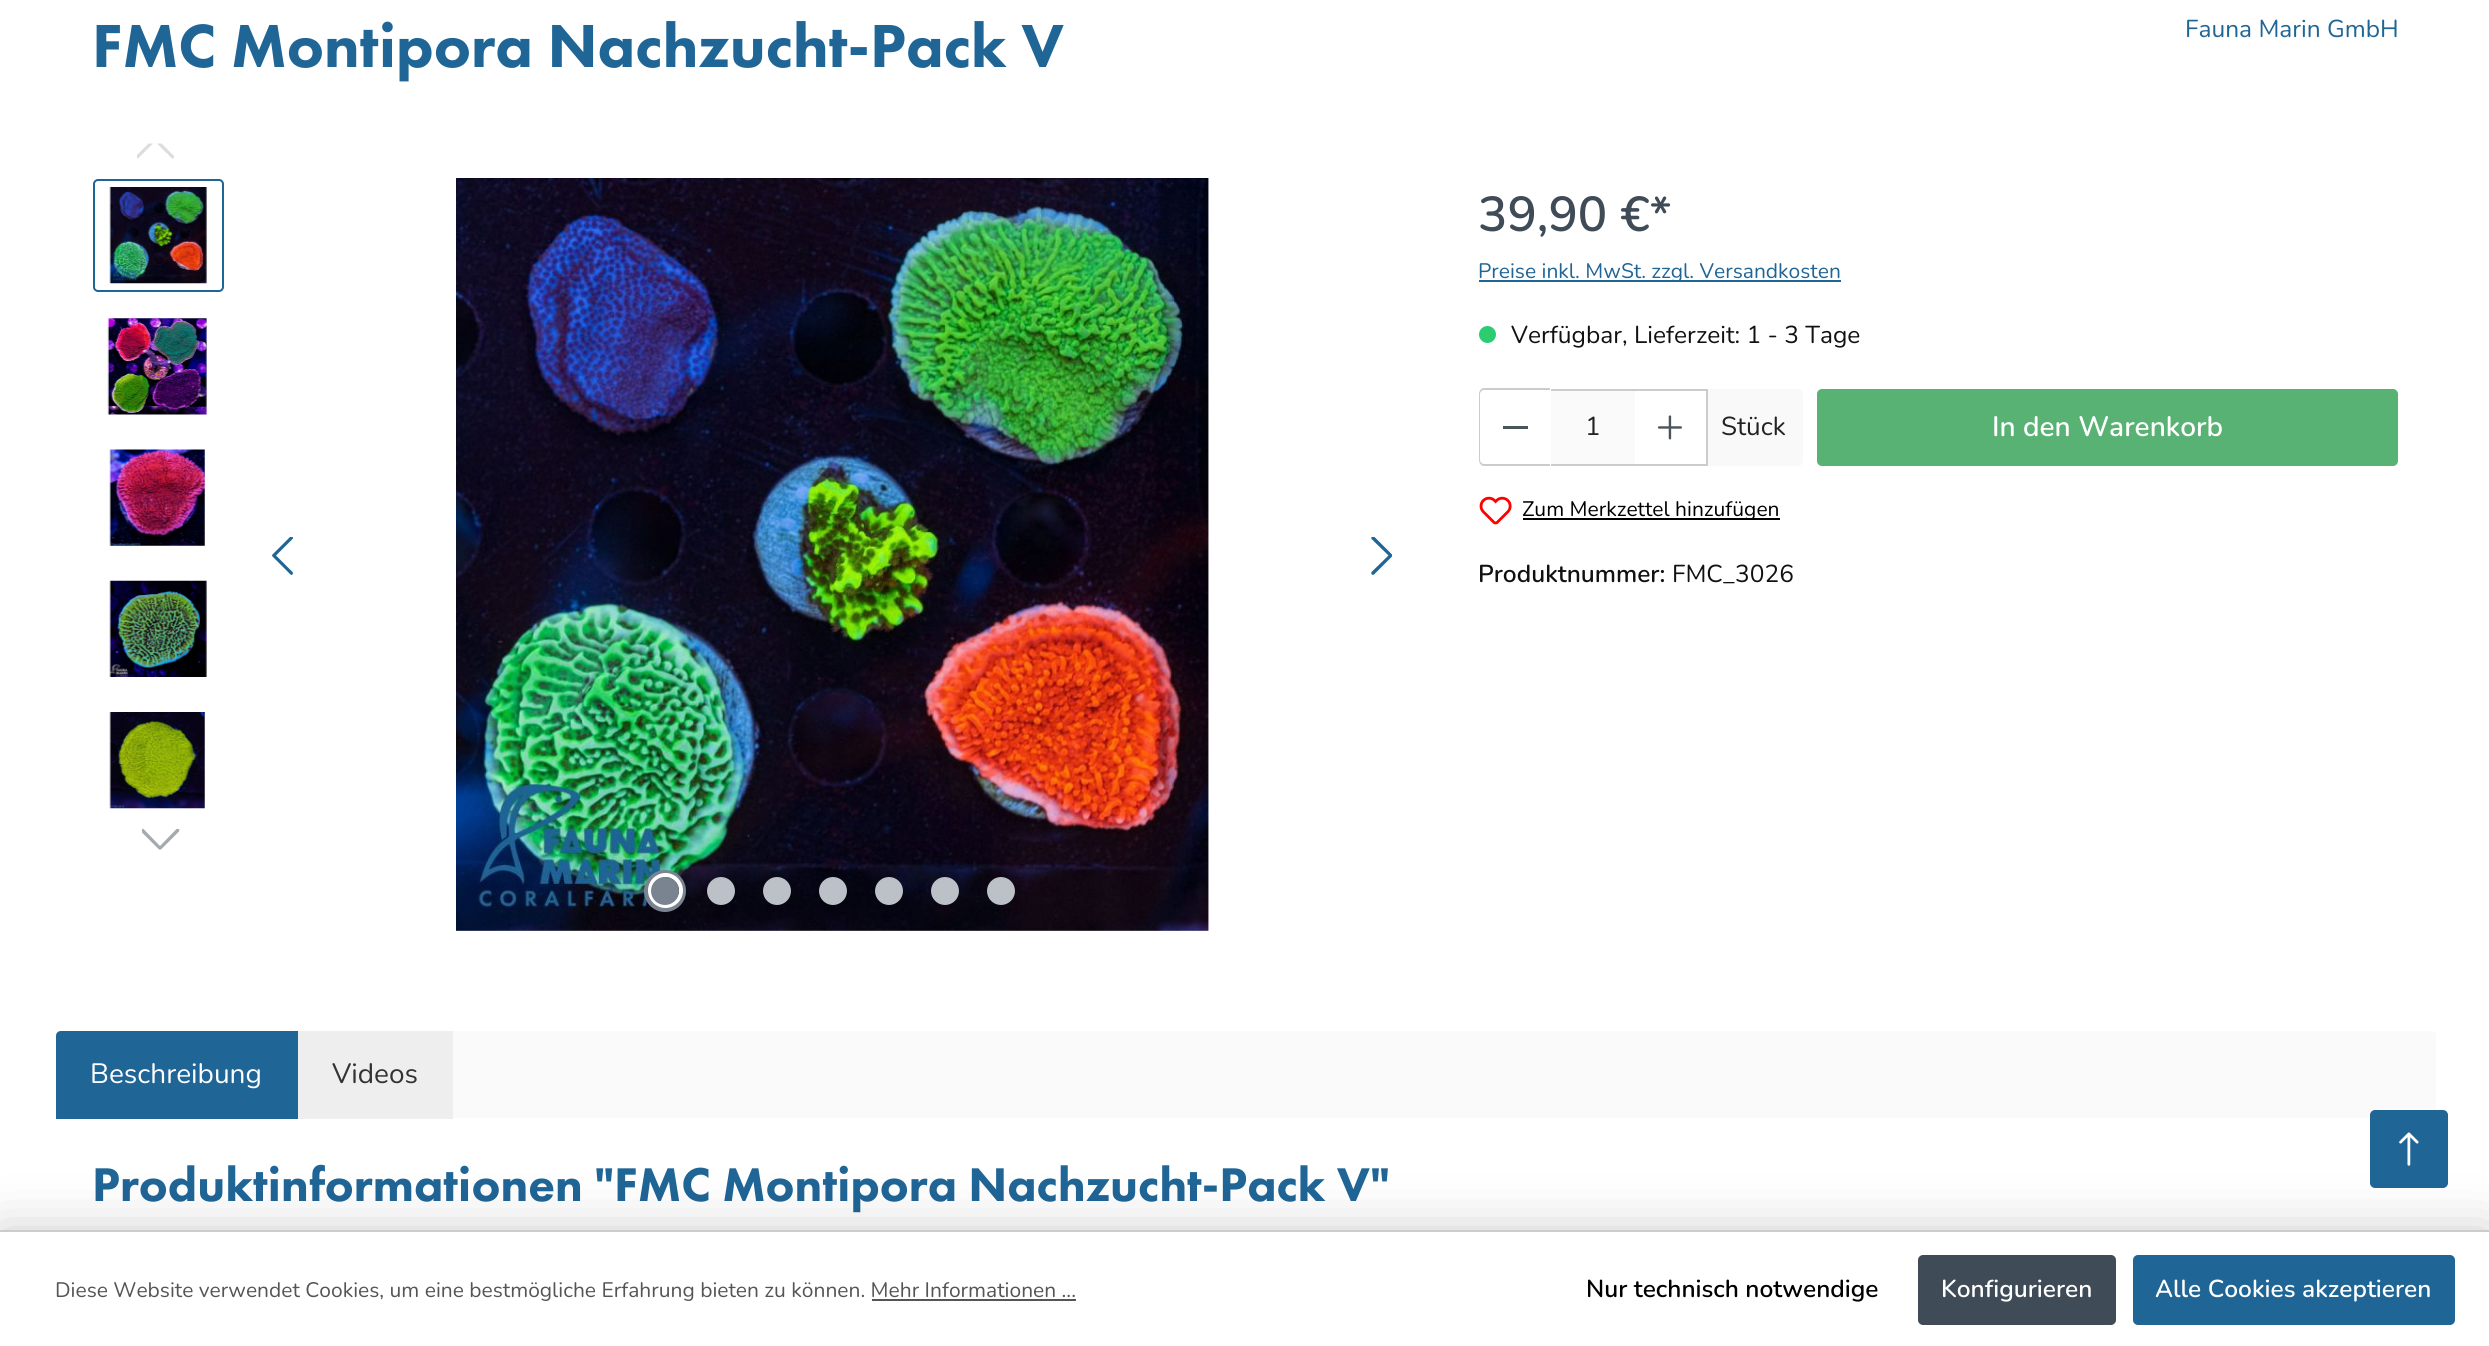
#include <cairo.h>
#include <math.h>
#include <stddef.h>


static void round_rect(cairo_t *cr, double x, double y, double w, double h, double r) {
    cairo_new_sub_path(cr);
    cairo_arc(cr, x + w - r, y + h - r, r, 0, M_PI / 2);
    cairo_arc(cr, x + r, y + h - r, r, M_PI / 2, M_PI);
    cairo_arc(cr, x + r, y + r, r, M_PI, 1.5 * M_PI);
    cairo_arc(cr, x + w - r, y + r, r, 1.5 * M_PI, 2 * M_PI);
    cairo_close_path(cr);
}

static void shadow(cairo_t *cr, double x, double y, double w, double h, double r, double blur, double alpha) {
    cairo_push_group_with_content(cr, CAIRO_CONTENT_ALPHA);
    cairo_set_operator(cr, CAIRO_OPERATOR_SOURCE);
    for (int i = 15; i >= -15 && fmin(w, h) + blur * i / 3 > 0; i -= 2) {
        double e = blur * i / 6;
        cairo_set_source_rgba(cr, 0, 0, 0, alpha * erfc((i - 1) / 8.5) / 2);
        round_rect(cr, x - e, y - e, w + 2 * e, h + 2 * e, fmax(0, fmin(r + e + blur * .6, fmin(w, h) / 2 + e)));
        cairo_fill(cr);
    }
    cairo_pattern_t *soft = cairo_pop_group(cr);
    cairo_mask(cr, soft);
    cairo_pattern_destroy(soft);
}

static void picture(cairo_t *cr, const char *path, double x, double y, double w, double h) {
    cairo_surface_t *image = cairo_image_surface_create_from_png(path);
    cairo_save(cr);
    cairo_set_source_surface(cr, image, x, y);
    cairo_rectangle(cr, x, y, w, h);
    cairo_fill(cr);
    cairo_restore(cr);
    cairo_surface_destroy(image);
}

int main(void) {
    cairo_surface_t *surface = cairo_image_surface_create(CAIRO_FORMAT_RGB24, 2489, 1346);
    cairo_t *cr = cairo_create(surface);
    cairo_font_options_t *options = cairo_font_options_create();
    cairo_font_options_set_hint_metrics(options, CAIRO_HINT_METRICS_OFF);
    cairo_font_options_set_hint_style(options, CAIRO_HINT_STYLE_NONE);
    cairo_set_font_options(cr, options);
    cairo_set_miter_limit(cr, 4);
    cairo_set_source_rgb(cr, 1, 1, 1);
    cairo_paint(cr);
    cairo_select_font_face(cr, "Futura PT Black", CAIRO_FONT_SLANT_NORMAL, CAIRO_FONT_WEIGHT_NORMAL);
    cairo_set_font_size(cr, 63);
    cairo_set_source_rgb(cr, 0.122, 0.396, 0.588);
    cairo_move_to(cr, 92, 67);
    cairo_show_text(cr, "FMC Montipora Nachzucht-Pack V");
    cairo_select_font_face(cr, "Nunito ExtraLight", CAIRO_FONT_SLANT_NORMAL, CAIRO_FONT_WEIGHT_NORMAL);
    cairo_set_font_size(cr, 24.5);
    cairo_move_to(cr, 2185, 37);
    cairo_show_text(cr, "Fauna Marin GmbH");
    cairo_save(cr);
    cairo_rectangle(cr, 137, 130, 38, 38);
    cairo_clip(cr);
    cairo_set_source_rgb(cr, 0.859, 0.867, 0.871);
    cairo_set_fill_rule(cr, CAIRO_FILL_RULE_EVEN_ODD);
    cairo_new_path(cr);
    cairo_move_to(cr, 171.5, 158);
    cairo_line_to(cr, 157, 143.5);
    cairo_line_to(cr, 161.5, 143.5);
    cairo_line_to(cr, 174, 156);
    cairo_curve_to(cr, 174, 157.5, 173.5, 160, 171.5, 158);
    cairo_close_path(cr);
    cairo_move_to(cr, 148.5, 143.5);
    cairo_line_to(cr, 136, 156);
    cairo_line_to(cr, 135.5, 157);
    cairo_curve_to(cr, 136, 158.5, 137.5, 159, 138.5, 158);
    cairo_line_to(cr, 153, 143.5);
    cairo_close_path(cr);
    cairo_fill(cr);
    cairo_restore(cr);
    cairo_save(cr);
    cairo_rectangle(cr, 142, 821, 38, 38);
    cairo_clip(cr);
    cairo_set_source_rgb(cr, 0.647, 0.667, 0.678);
    cairo_set_fill_rule(cr, CAIRO_FILL_RULE_EVEN_ODD);
    cairo_new_path(cr);
    cairo_move_to(cr, 160, 846);
    cairo_line_to(cr, 176.5, 829);
    cairo_curve_to(cr, 177.5, 828.5, 179, 829, 179.5, 830);
    cairo_line_to(cr, 179, 831.5);
    cairo_line_to(cr, 161, 849.5);
    cairo_line_to(cr, 160, 849.5);
    cairo_line_to(cr, 159, 849.5);
    cairo_line_to(cr, 141, 831.5);
    cairo_line_to(cr, 141, 830);
    cairo_curve_to(cr, 141, 829, 142.5, 828.5, 143.5, 829);
    cairo_close_path(cr);
    cairo_fill(cr);
    cairo_restore(cr);
    round_rect(cr, 94, 180, 129, 111, 4);
    cairo_stroke(cr);
    picture(cr, "img1.png", 109, 187, 98, 97);
    picture(cr, "img2.png", 107, 318, 100, 97);
    picture(cr, "img3.png", 109, 449, 96, 97);
    picture(cr, "img4.png", 109, 580, 98, 97);
    picture(cr, "img5.png", 109, 712, 96, 97);
    picture(cr, "img6.png", 456, 178, 753, 753);
    cairo_save(cr);
    cairo_rectangle(cr, 263, 537, 38, 39);
    cairo_clip(cr);
    cairo_set_fill_rule(cr, CAIRO_FILL_RULE_EVEN_ODD);
    cairo_new_path(cr);
    cairo_move_to(cr, 276, 555.5);
    cairo_line_to(cr, 292.5, 572);
    cairo_curve_to(cr, 293.5, 573, 293, 574.5, 291.5, 575);
    cairo_line_to(cr, 290.5, 574.5);
    cairo_line_to(cr, 272.5, 556.5);
    cairo_line_to(cr, 272, 555.5);
    cairo_line_to(cr, 272.5, 554.5);
    cairo_line_to(cr, 290.5, 536.5);
    cairo_line_to(cr, 291.5, 536.5);
    cairo_curve_to(cr, 293, 536.5, 293.5, 538, 292.5, 539);
    cairo_close_path(cr);
    cairo_fill(cr);
    cairo_restore(cr);
    cairo_save(cr);
    cairo_rectangle(cr, 1363, 537, 39, 39);
    cairo_clip(cr);
    cairo_set_fill_rule(cr, CAIRO_FILL_RULE_EVEN_ODD);
    cairo_new_path(cr);
    cairo_move_to(cr, 1388.5, 555.5);
    cairo_line_to(cr, 1371.5, 572);
    cairo_curve_to(cr, 1371, 573, 1371.5, 574.5, 1372.5, 575);
    cairo_line_to(cr, 1374, 574.5);
    cairo_line_to(cr, 1392, 556.5);
    cairo_line_to(cr, 1392, 555.5);
    cairo_line_to(cr, 1392, 554.5);
    cairo_line_to(cr, 1374, 536.5);
    cairo_line_to(cr, 1372.5, 536.5);
    cairo_curve_to(cr, 1371.5, 536.5, 1371, 538, 1371.5, 539);
    cairo_close_path(cr);
    cairo_fill(cr);
    cairo_restore(cr);
    cairo_arc(cr, 665, 891, 17.5, 0, 2 * M_PI);
    cairo_set_source_rgb(cr, 0.475, 0.518, 0.565);
    cairo_set_line_width(cr, 7);
    cairo_stroke(cr);
    cairo_arc(cr, 665.5, 890.5, 15.5, 0, 2 * M_PI);
    cairo_set_source_rgb(cr, 1, 1, 1);
    cairo_set_line_width(cr, 4);
    cairo_stroke(cr);
    cairo_set_source_rgb(cr, 0.475, 0.518, 0.565);
    cairo_arc(cr, 665, 891, 14, 0, 2 * M_PI);
    cairo_fill(cr);
    cairo_set_source_rgb(cr, 0.737, 0.757, 0.78);
    cairo_arc(cr, 721, 891, 14, 0, 2 * M_PI);
    cairo_fill(cr);
    cairo_arc(cr, 777, 891, 14, 0, 2 * M_PI);
    cairo_fill(cr);
    cairo_arc(cr, 833, 891, 14, 0, 2 * M_PI);
    cairo_fill(cr);
    cairo_arc(cr, 889, 891, 14, 0, 2 * M_PI);
    cairo_fill(cr);
    cairo_arc(cr, 945, 891, 14, 0, 2 * M_PI);
    cairo_fill(cr);
    cairo_arc(cr, 1001, 891, 14, 0, 2 * M_PI);
    cairo_fill(cr);
    cairo_select_font_face(cr, "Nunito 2 ExtraLight", CAIRO_FONT_SLANT_NORMAL, CAIRO_FONT_WEIGHT_NORMAL);
    cairo_set_font_size(cr, 49);
    cairo_set_source_rgb(cr, 0.251, 0.294, 0.345);
    cairo_move_to(cr, 1478, 231);
    cairo_show_text(cr, "39,90 €*");
    cairo_set_source_rgb(cr, 0.122, 0.396, 0.588);
    cairo_rectangle(cr, 1479, 280, 362, 2);
    cairo_fill(cr);
    cairo_select_font_face(cr, "Nunito ExtraLight", CAIRO_FONT_SLANT_NORMAL, CAIRO_FONT_WEIGHT_NORMAL);
    cairo_set_font_size(cr, 21);
    cairo_move_to(cr, 1478, 278);
    cairo_show_text(cr, "Preise inkl. MwSt. zzgl. Versandkosten");
    cairo_set_source_rgb(cr, 0.18, 0.8, 0.443);
    cairo_new_path(cr);
    cairo_arc(cr, 1487.5, 334.5, 8.5, 0, 2 * M_PI);
    cairo_fill(cr);
    cairo_set_font_size(cr, 24.5);
    cairo_set_source_rgb(cr, 0.067, 0.067, 0.067);
    cairo_move_to(cr, 1511, 343);
    cairo_show_text(cr, "Verfügbar, Lieferzeit: 1 - 3 Tage");
    cairo_set_source_rgb(cr, 0.976, 0.976, 0.976);
    cairo_new_path(cr);
    cairo_move_to(cr, 1706, 389);
    cairo_line_to(cr, 1798, 389);
    cairo_curve_to(cr, 1801, 389, 1803, 391, 1803, 394);
    cairo_line_to(cr, 1803, 461);
    cairo_curve_to(cr, 1803, 464, 1801, 466, 1798, 466);
    cairo_line_to(cr, 1706, 466);
    cairo_close_path(cr);
    cairo_fill(cr);
    cairo_set_source_rgb(cr, 0.8, 0.8, 0.8);
    cairo_rectangle(cr, 1549, 389, 159, 2);
    cairo_fill(cr);
    cairo_rectangle(cr, 1549, 464, 87, 2);
    cairo_fill(cr);
    cairo_set_source_rgb(cr, 1, 1, 1);
    cairo_new_path(cr);
    cairo_move_to(cr, 1484, 389);
    cairo_line_to(cr, 1551, 389);
    cairo_line_to(cr, 1551, 466);
    cairo_line_to(cr, 1484, 466);
    cairo_curve_to(cr, 1481, 466, 1479, 464, 1479, 461);
    cairo_line_to(cr, 1479, 394);
    cairo_curve_to(cr, 1479, 391, 1481, 389, 1484, 389);
    cairo_close_path(cr);
    cairo_fill(cr);
    cairo_set_source_rgb(cr, 0.8, 0.8, 0.8);
    cairo_set_fill_rule(cr, CAIRO_FILL_RULE_EVEN_ODD);
    cairo_new_path(cr);
    cairo_move_to(cr, 1484, 388);
    cairo_line_to(cr, 1550, 388);
    cairo_line_to(cr, 1550, 466);
    cairo_line_to(cr, 1484, 466);
    cairo_curve_to(cr, 1481, 466, 1479, 463, 1479, 460);
    cairo_line_to(cr, 1479, 394);
    cairo_curve_to(cr, 1479, 391, 1481, 388, 1484, 388);
    cairo_close_path(cr);
    cairo_move_to(cr, 1484, 390);
    cairo_line_to(cr, 1550, 390);
    cairo_line_to(cr, 1550, 464);
    cairo_line_to(cr, 1484, 464);
    cairo_curve_to(cr, 1482, 464, 1480, 462, 1480, 460);
    cairo_line_to(cr, 1480, 394);
    cairo_curve_to(cr, 1480, 392, 1482, 390, 1484, 390);
    cairo_close_path(cr);
    cairo_fill(cr);
    cairo_set_source_rgb(cr, 0.29, 0.329, 0.357);
    cairo_rectangle(cr, 1503, 426, 25, 3);
    cairo_fill(cr);
    cairo_set_source_rgb(cr, 0.98, 0.98, 0.98);
    cairo_rectangle(cr, 1551, 391, 84, 73);
    cairo_fill(cr);
    cairo_set_font_size(cr, 26);
    cairo_set_source_rgb(cr, 0.133, 0.133, 0.133);
    cairo_move_to(cr, 1585, 435);
    cairo_show_text(cr, "1");
    cairo_set_source_rgb(cr, 0.8, 0.8, 0.8);
    cairo_rectangle(cr, 1706, 389, 2, 77);
    cairo_fill(cr);
    cairo_rectangle(cr, 1635, 464, 73, 2);
    cairo_fill(cr);
    picture(cr, "img7.png", 1657, 415, 25, 25);
    cairo_set_source_rgb(cr, 0.133, 0.133, 0.133);
    cairo_move_to(cr, 1721, 435);
    cairo_show_text(cr, "Stück");
    cairo_set_source_rgb(cr, 0.345, 0.698, 0.455);
    round_rect(cr, 1818, 390, 579, 75, 4);
    cairo_fill_preserve(cr);
    cairo_set_line_width(cr, 2);
    cairo_stroke(cr);
    cairo_select_font_face(cr, "Nunito 2 ExtraLight", CAIRO_FONT_SLANT_NORMAL, CAIRO_FONT_WEIGHT_NORMAL);
    cairo_set_font_size(cr, 28);
    cairo_set_source_rgb(cr, 1, 1, 1);
    cairo_move_to(cr, 1992, 436);
    cairo_show_text(cr, "In den Warenkorb");
    picture(cr, "img8.png", 1479, 496, 33, 29);
    cairo_set_source_rgb(cr, 0, 0, 0);
    cairo_rectangle(cr, 1523, 518, 257, 2);
    cairo_fill(cr);
    cairo_select_font_face(cr, "Nunito ExtraLight", CAIRO_FONT_SLANT_NORMAL, CAIRO_FONT_WEIGHT_NORMAL);
    cairo_set_font_size(cr, 21);
    cairo_move_to(cr, 1522, 516);
    cairo_show_text(cr, "Zum Merkzettel hinzufügen");
    cairo_select_font_face(cr, "Nunito 2 ExtraLight", CAIRO_FONT_SLANT_NORMAL, CAIRO_FONT_WEIGHT_NORMAL);
    cairo_set_font_size(cr, 24.5);
    cairo_set_source_rgb(cr, 0.067, 0.067, 0.067);
    cairo_move_to(cr, 1478, 582);
    cairo_show_text(cr, "Produktnummer:");
    cairo_select_font_face(cr, "Nunito ExtraLight", CAIRO_FONT_SLANT_NORMAL, CAIRO_FONT_WEIGHT_NORMAL);
    cairo_move_to(cr, 1672, 582);
    cairo_show_text(cr, "FMC_3026");
    cairo_save(cr);
    cairo_set_fill_rule(cr, CAIRO_FILL_RULE_WINDING);
    round_rect(cr, 56, 1031, 2380, 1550, 5);
    cairo_clip(cr);
    cairo_set_source_rgb(cr, 0.98, 0.98, 0.98);
    cairo_new_path(cr);
    cairo_move_to(cr, 65, 1031);
    cairo_line_to(cr, 2431, 1031);
    cairo_curve_to(cr, 2434, 1031, 2436, 1033, 2436, 1036);
    cairo_line_to(cr, 2436, 1118);
    cairo_line_to(cr, 56, 1118);
    cairo_line_to(cr, 56, 1040);
    cairo_curve_to(cr, 56, 1035, 60, 1031, 65, 1031);
    cairo_close_path(cr);
    cairo_fill(cr);
    cairo_restore(cr);
    cairo_set_source_rgb(cr, 0.122, 0.396, 0.588);
    cairo_new_path(cr);
    cairo_move_to(cr, 61, 1031);
    cairo_line_to(cr, 298, 1031);
    cairo_line_to(cr, 298, 1115);
    cairo_line_to(cr, 56, 1115);
    cairo_line_to(cr, 56, 1036);
    cairo_curve_to(cr, 56, 1033, 58, 1031, 61, 1031);
    cairo_close_path(cr);
    cairo_fill(cr);
    cairo_rectangle(cr, 56, 1115, 242, 4);
    cairo_fill(cr);
    cairo_set_font_size(cr, 28);
    cairo_set_source_rgb(cr, 1, 1, 1);
    cairo_move_to(cr, 90, 1083);
    cairo_show_text(cr, "Beschreibung");
    cairo_set_source_rgb(cr, 0.933, 0.933, 0.933);
    cairo_rectangle(cr, 298, 1031, 155, 88);
    cairo_fill(cr);
    cairo_set_source_rgb(cr, 0.2, 0.2, 0.2);
    cairo_move_to(cr, 332, 1083);
    cairo_show_text(cr, "Videos");
    cairo_select_font_face(cr, "Futura PT Black", CAIRO_FONT_SLANT_NORMAL, CAIRO_FONT_WEIGHT_NORMAL);
    cairo_set_font_size(cr, 49);
    cairo_set_source_rgb(cr, 0.122, 0.396, 0.588);
    cairo_move_to(cr, 92, 1201);
    cairo_show_text(cr, "Produktinformationen \"FMC Montipora Nachzucht-Pack V\"");
    round_rect(cr, 2371, 1111, 76, 76, 4);
    cairo_fill_preserve(cr);
    cairo_stroke(cr);
    picture(cr, "img9.png", 2399, 1132, 20, 34);
    cairo_set_source_rgb(cr, 0, 0, 0);
    shadow(cr, 0, 1230, 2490, 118, 0, 26, 0.2);
    cairo_set_source_rgb(cr, 1, 1, 1);
    cairo_rectangle(cr, 0, 1232, 2489, 114);
    cairo_fill(cr);
    cairo_set_source_rgb(cr, 0.8, 0.8, 0.8);
    cairo_rectangle(cr, 0, 1230, 2489, 2);
    cairo_fill(cr);
    cairo_select_font_face(cr, "Nunito ExtraLight", CAIRO_FONT_SLANT_NORMAL, CAIRO_FONT_WEIGHT_NORMAL);
    cairo_set_font_size(cr, 21);
    cairo_set_source_rgb(cr, 0.333, 0.333, 0.333);
    cairo_move_to(cr, 55, 1297);
    cairo_show_text(cr, "Diese Website verwendet Cookies, um eine bestmögliche Erfahrung bieten zu können. Mehr Informationen ...");
    cairo_rectangle(cr, 872, 1299, 204, 2);
    cairo_fill(cr);
    cairo_select_font_face(cr, "Nunito 2 ExtraLight", CAIRO_FONT_SLANT_NORMAL, CAIRO_FONT_WEIGHT_NORMAL);
    cairo_set_font_size(cr, 24.5);
    cairo_set_source_rgb(cr, 0, 0, 0);
    cairo_move_to(cr, 1586, 1297);
    cairo_show_text(cr, "Nur technisch notwendige");
    cairo_set_source_rgb(cr, 0.251, 0.294, 0.345);
    round_rect(cr, 1919, 1256, 196, 68, 4);
    cairo_fill_preserve(cr);
    cairo_stroke(cr);
    cairo_set_source_rgb(cr, 1, 1, 1);
    cairo_move_to(cr, 1941, 1297);
    cairo_show_text(cr, "Konfigurieren");
    cairo_set_source_rgb(cr, 0.122, 0.396, 0.588);
    round_rect(cr, 2134, 1256, 320, 68, 4);
    cairo_fill_preserve(cr);
    cairo_stroke(cr);
    cairo_set_source_rgb(cr, 1, 1, 1);
    cairo_move_to(cr, 2155, 1297);
    cairo_show_text(cr, "Alle Cookies akzeptieren");
    cairo_surface_write_to_png(surface, "page.png");
    cairo_font_options_destroy(options);
    cairo_destroy(cr);
    cairo_surface_destroy(surface);
    return 0;
}
